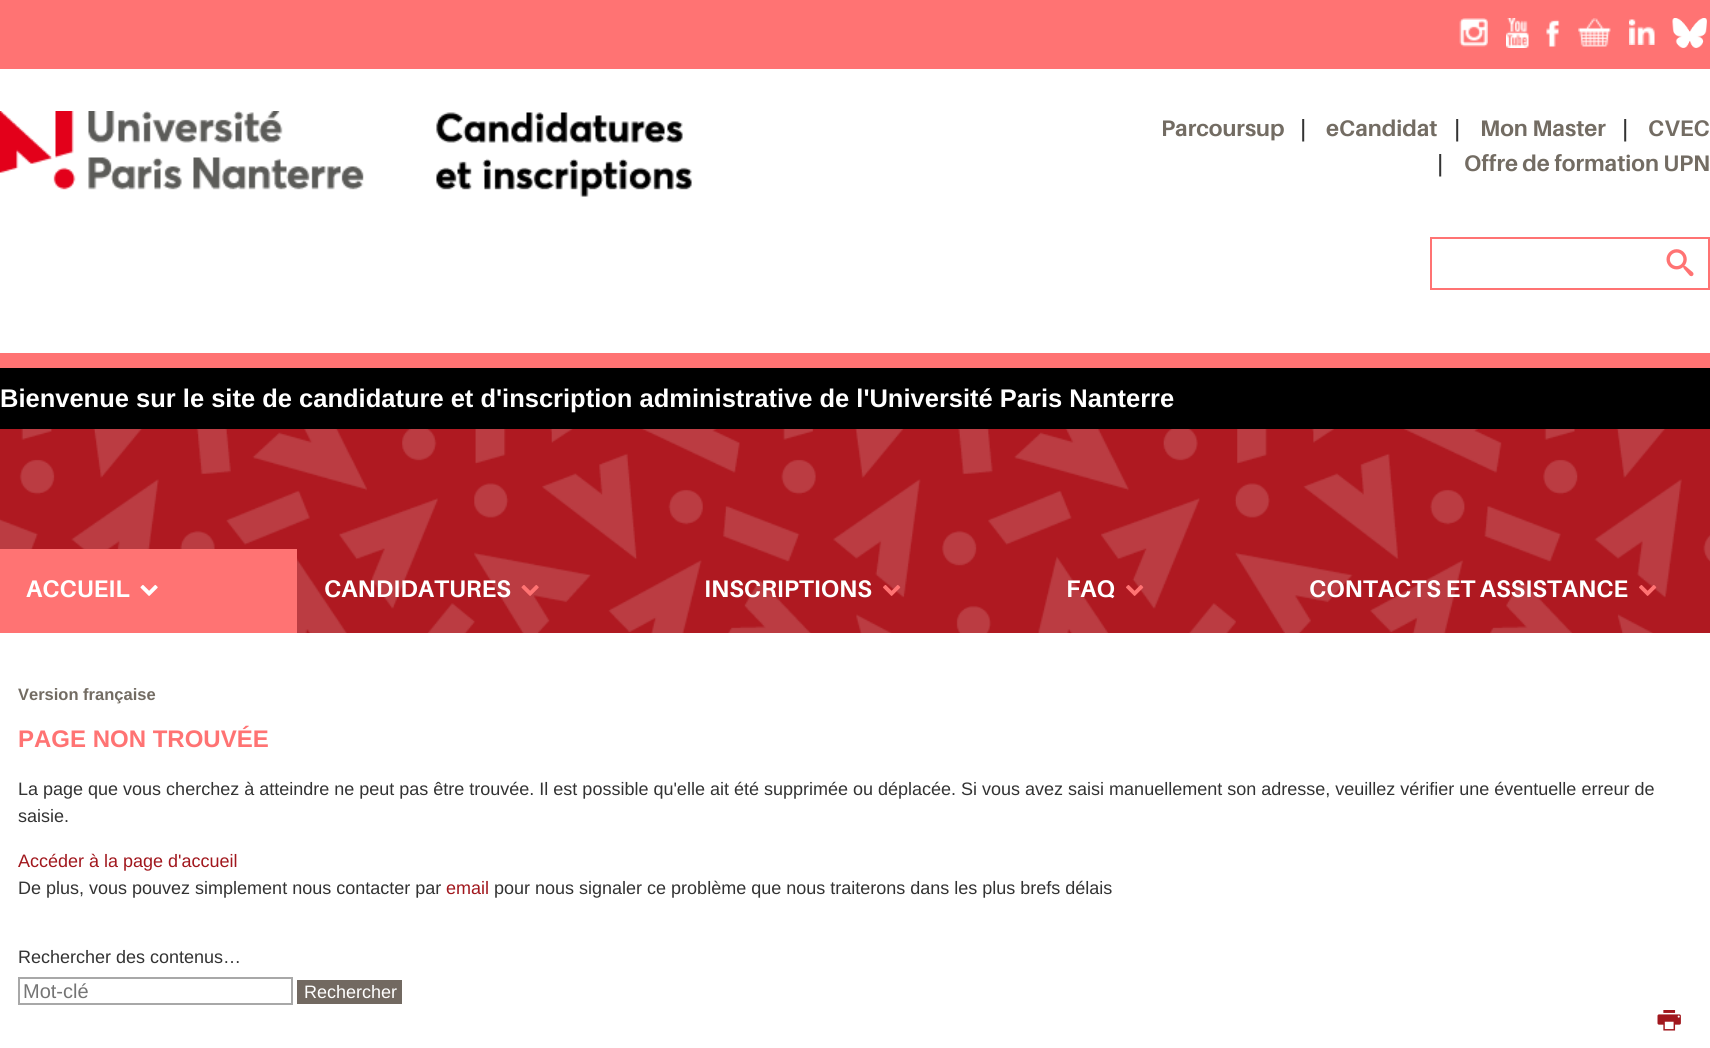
#include <cairo.h>
#include <math.h>
#include <stddef.h>


static void picture(cairo_t *cr, const char *path, double x, double y, double w, double h) {
    cairo_surface_t *image = cairo_image_surface_create_from_png(path);
    cairo_save(cr);
    cairo_set_source_surface(cr, image, x, y);
    cairo_rectangle(cr, x, y, w, h);
    cairo_fill(cr);
    cairo_restore(cr);
    cairo_surface_destroy(image);
}

int main(void) {
    cairo_surface_t *surface = cairo_image_surface_create(CAIRO_FORMAT_RGB24, 1710, 1048);
    cairo_t *cr = cairo_create(surface);
    cairo_font_options_t *options = cairo_font_options_create();
    cairo_font_options_set_hint_metrics(options, CAIRO_HINT_METRICS_OFF);
    cairo_font_options_set_hint_style(options, CAIRO_HINT_STYLE_NONE);
    cairo_set_font_options(cr, options);
    cairo_set_miter_limit(cr, 4);
    cairo_set_source_rgb(cr, 1, 1, 1);
    cairo_paint(cr);
    cairo_set_source_rgb(cr, 1, 0.451, 0.451);
    cairo_rectangle(cr, 0, 0, 1710, 69);
    cairo_fill(cr);
    picture(cr, "img1.png", 1459, 18, 29, 29);
    picture(cr, "img2.png", 1506, 18, 23, 30);
    picture(cr, "img3.png", 1546, 19, 14, 28);
    picture(cr, "img4.png", 1578, 18, 33, 29);
    picture(cr, "img5.png", 1629, 19, 26, 26);
    picture(cr, "img6.png", 1672, 18, 35, 30);
    picture(cr, "img7.png", 0, 111, 692, 86);
    cairo_select_font_face(cr, "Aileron", CAIRO_FONT_SLANT_NORMAL, CAIRO_FONT_WEIGHT_BOLD);
    cairo_set_font_size(cr, 22.5);
    cairo_set_source_rgb(cr, 0.451, 0.424, 0.388);
    cairo_move_to(cr, 1161, 136);
    cairo_show_text(cr, "Parcoursup");
    cairo_set_source_rgb(cr, 0.2, 0.2, 0.2);
    cairo_move_to(cr, 1300, 137);
    cairo_show_text(cr, "|");
    cairo_set_source_rgb(cr, 0.451, 0.424, 0.388);
    cairo_move_to(cr, 1326, 136);
    cairo_show_text(cr, "eCandidat");
    cairo_set_source_rgb(cr, 0.2, 0.2, 0.2);
    cairo_move_to(cr, 1454, 137);
    cairo_show_text(cr, "|");
    cairo_set_source_rgb(cr, 0.451, 0.424, 0.388);
    cairo_move_to(cr, 1480, 136);
    cairo_show_text(cr, "Mon Master");
    cairo_set_source_rgb(cr, 0.2, 0.2, 0.2);
    cairo_move_to(cr, 1622, 137);
    cairo_show_text(cr, "|");
    cairo_set_source_rgb(cr, 0.451, 0.424, 0.388);
    cairo_move_to(cr, 1648, 136);
    cairo_show_text(cr, "CVEC");
    cairo_set_source_rgb(cr, 0.2, 0.2, 0.2);
    cairo_move_to(cr, 1437, 172);
    cairo_show_text(cr, "|");
    cairo_set_source_rgb(cr, 0.451, 0.424, 0.388);
    cairo_move_to(cr, 1464, 171);
    cairo_show_text(cr, "Offre de formation UPN");
    cairo_rectangle(cr, 1431, 238, 278, 51);
    cairo_set_source_rgb(cr, 1, 0.451, 0.451);
    cairo_stroke(cr);
    picture(cr, "img8.png", 1666, 249, 28, 28);
    cairo_set_source_rgb(cr, 0, 0, 0);
    cairo_rectangle(cr, 0, 368, 1710, 61);
    cairo_fill(cr);
    cairo_set_source_rgb(cr, 1, 0.451, 0.451);
    cairo_rectangle(cr, 0, 353, 1710, 15);
    cairo_fill(cr);
    cairo_select_font_face(cr, "Liberation Sans", CAIRO_FONT_SLANT_NORMAL, CAIRO_FONT_WEIGHT_BOLD);
    cairo_set_font_size(cr, 25.5);
    cairo_set_source_rgb(cr, 1, 1, 1);
    cairo_move_to(cr, 0, 407);
    cairo_show_text(cr, "Bienvenue sur le site de candidature et d'inscription administrative de l'Université Paris Nanterre");
    picture(cr, "img9.png", 0, 429, 1710, 204);
    cairo_set_source_rgb(cr, 1, 0.451, 0.451);
    cairo_rectangle(cr, 0, 549, 297, 84);
    cairo_fill(cr);
    cairo_select_font_face(cr, "Aileron", CAIRO_FONT_SLANT_NORMAL, CAIRO_FONT_WEIGHT_BOLD);
    cairo_set_font_size(cr, 24);
    cairo_set_source_rgb(cr, 1, 1, 1);
    cairo_move_to(cr, 26, 597);
    cairo_show_text(cr, "ACCUEIL");
    picture(cr, "img10.png", 140, 584, 18, 12);
    cairo_move_to(cr, 324, 597);
    cairo_show_text(cr, "CANDIDATURES");
    picture(cr, "img11.png", 521, 585, 18, 11);
    cairo_move_to(cr, 704, 597);
    cairo_show_text(cr, "INSCRIPTIONS");
    picture(cr, "img12.png", 883, 585, 18, 11);
    cairo_move_to(cr, 1066, 597);
    cairo_show_text(cr, "FAQ");
    picture(cr, "img13.png", 1126, 585, 18, 11);
    cairo_move_to(cr, 1309, 597);
    cairo_show_text(cr, "CONTACTS ET ASSISTANCE");
    picture(cr, "img14.png", 1639, 585, 18, 11);
    cairo_select_font_face(cr, "Liberation Sans", CAIRO_FONT_SLANT_NORMAL, CAIRO_FONT_WEIGHT_BOLD);
    cairo_set_font_size(cr, 16.5);
    cairo_set_source_rgb(cr, 0.451, 0.424, 0.388);
    cairo_move_to(cr, 18, 700);
    cairo_show_text(cr, "Version française");
    cairo_set_font_size(cr, 24);
    cairo_set_source_rgb(cr, 1, 0.451, 0.451);
    cairo_move_to(cr, 18, 747);
    cairo_show_text(cr, "PAGE NON TROUVÉE");
    cairo_select_font_face(cr, "Liberation Sans", CAIRO_FONT_SLANT_NORMAL, CAIRO_FONT_WEIGHT_NORMAL);
    cairo_set_font_size(cr, 18);
    cairo_set_source_rgb(cr, 0.2, 0.2, 0.2);
    cairo_move_to(cr, 18, 795);
    cairo_show_text(cr, "La page que vous cherchez à atteindre ne peut pas être trouvée. Il est possible qu'elle ait été supprimée ou déplacée. Si vous avez saisi manuellement son adresse, veuillez vérifier une éventuelle erreur de");
    cairo_move_to(cr, 18, 822);
    cairo_show_text(cr, "saisie.");
    cairo_set_source_rgb(cr, 0.631, 0.09, 0.114);
    cairo_move_to(cr, 18, 867);
    cairo_show_text(cr, "Accéder à la page d'accueil");
    cairo_set_source_rgb(cr, 0.2, 0.2, 0.2);
    cairo_move_to(cr, 18, 894);
    cairo_show_text(cr, "De plus, vous pouvez simplement nous contacter par");
    cairo_set_source_rgb(cr, 0.631, 0.09, 0.114);
    cairo_move_to(cr, 446, 894);
    cairo_show_text(cr, "email");
    cairo_set_source_rgb(cr, 0.2, 0.2, 0.2);
    cairo_move_to(cr, 494, 894);
    cairo_show_text(cr, "pour nous signaler ce problème que nous traiterons dans les plus brefs délais");
    cairo_move_to(cr, 18, 963);
    cairo_show_text(cr, "Rechercher des contenus…");
    cairo_rectangle(cr, 19, 978, 273, 26);
    cairo_set_source_rgb(cr, 0.659, 0.659, 0.659);
    cairo_stroke(cr);
    cairo_set_font_size(cr, 20);
    cairo_set_source_rgb(cr, 0.459, 0.459, 0.459);
    cairo_move_to(cr, 23, 998);
    cairo_show_text(cr, "Mot-clé");
    cairo_set_source_rgb(cr, 0.447, 0.412, 0.38);
    cairo_rectangle(cr, 297, 980, 105, 24);
    cairo_fill(cr);
    cairo_set_font_size(cr, 18);
    cairo_set_source_rgb(cr, 1, 1, 1);
    cairo_move_to(cr, 304, 998);
    cairo_show_text(cr, "Rechercher");
    picture(cr, "img15.png", 1657, 1010, 24, 21);
    cairo_surface_write_to_png(surface, "page.png");
    cairo_font_options_destroy(options);
    cairo_destroy(cr);
    cairo_surface_destroy(surface);
    return 0;
}
